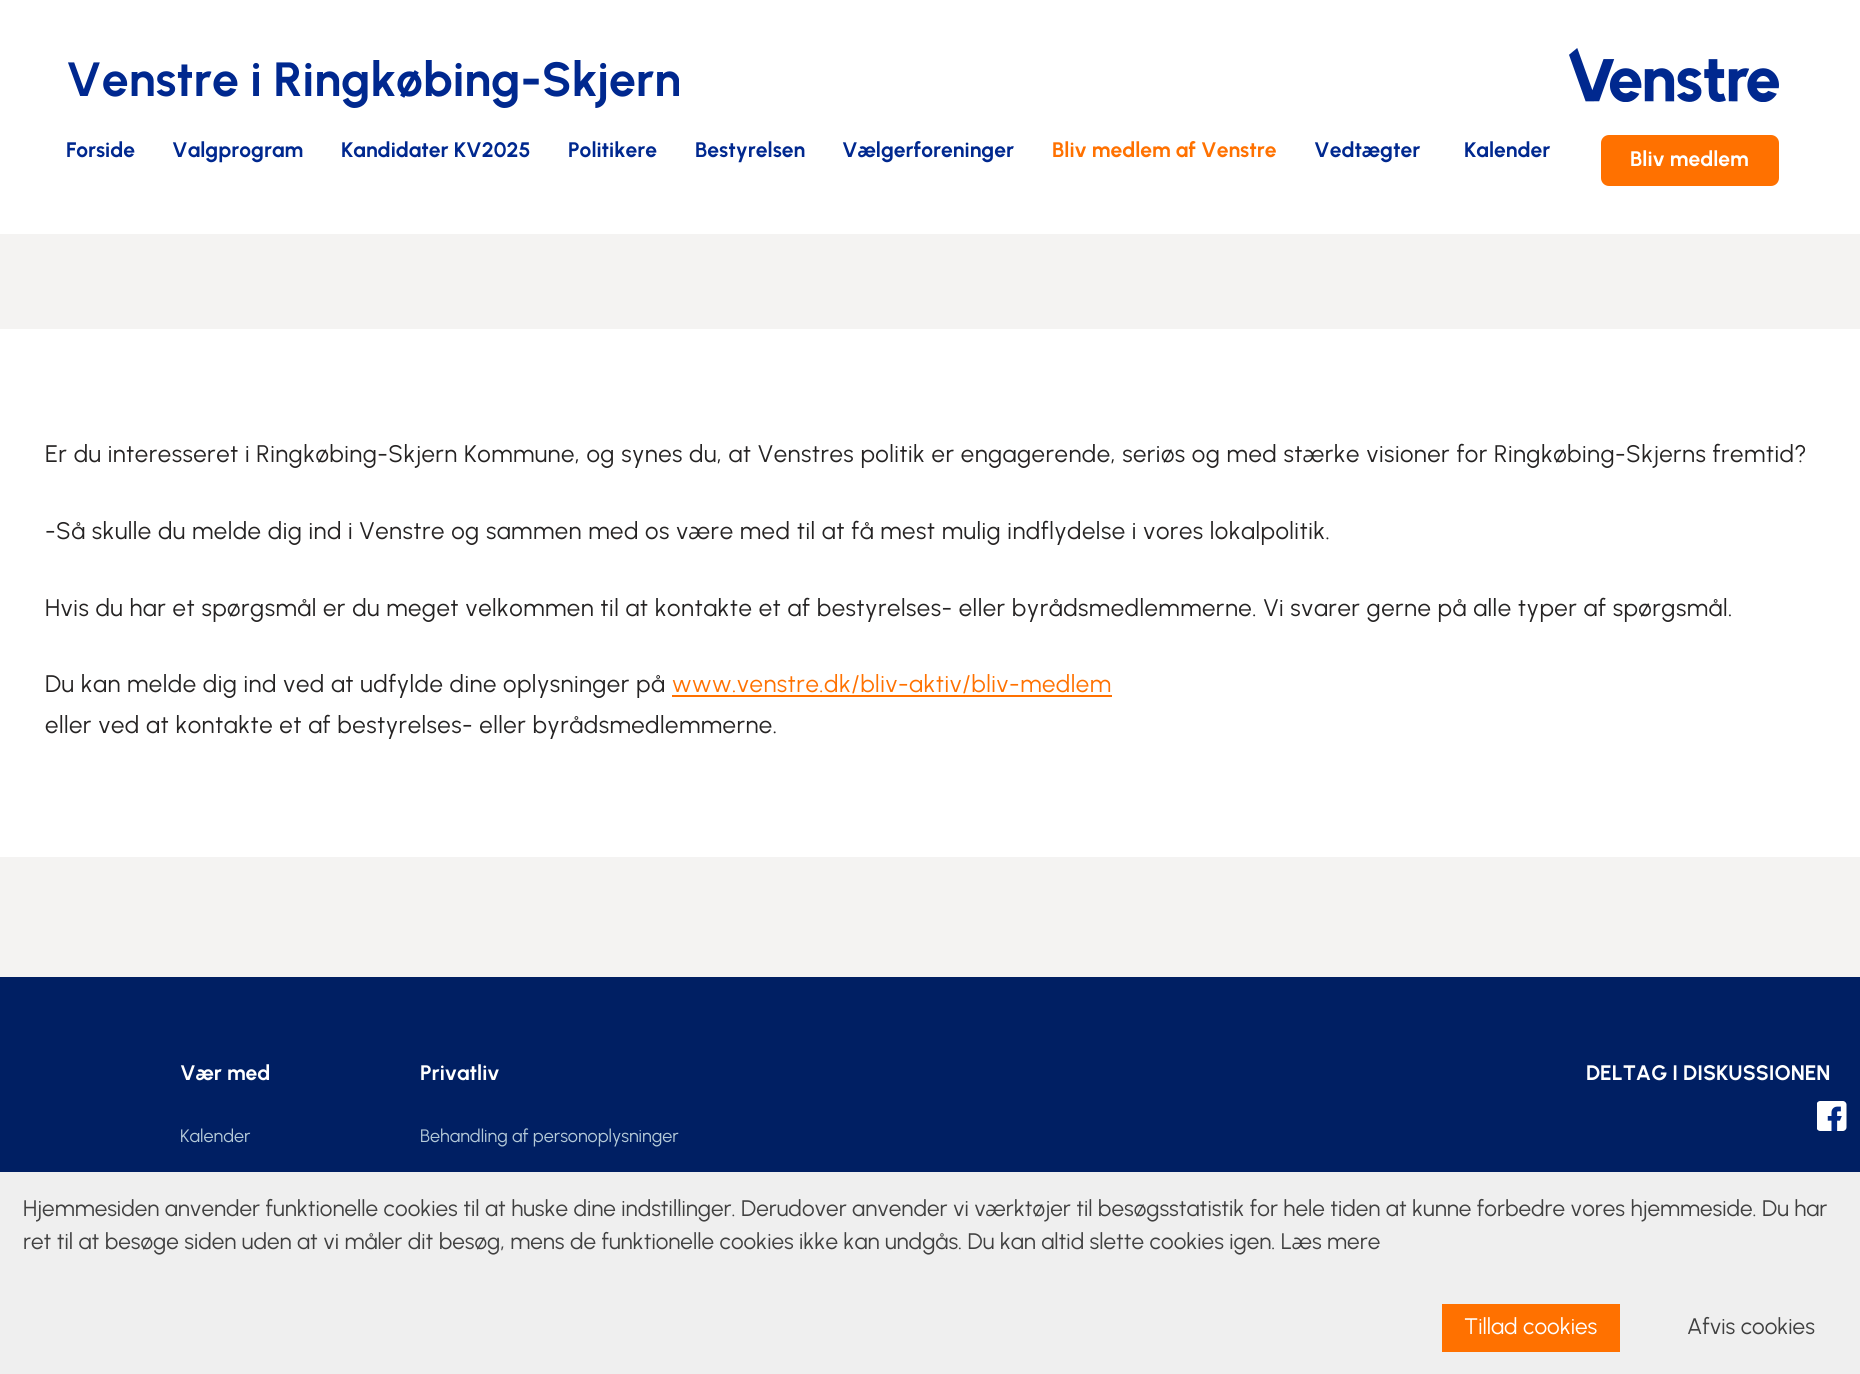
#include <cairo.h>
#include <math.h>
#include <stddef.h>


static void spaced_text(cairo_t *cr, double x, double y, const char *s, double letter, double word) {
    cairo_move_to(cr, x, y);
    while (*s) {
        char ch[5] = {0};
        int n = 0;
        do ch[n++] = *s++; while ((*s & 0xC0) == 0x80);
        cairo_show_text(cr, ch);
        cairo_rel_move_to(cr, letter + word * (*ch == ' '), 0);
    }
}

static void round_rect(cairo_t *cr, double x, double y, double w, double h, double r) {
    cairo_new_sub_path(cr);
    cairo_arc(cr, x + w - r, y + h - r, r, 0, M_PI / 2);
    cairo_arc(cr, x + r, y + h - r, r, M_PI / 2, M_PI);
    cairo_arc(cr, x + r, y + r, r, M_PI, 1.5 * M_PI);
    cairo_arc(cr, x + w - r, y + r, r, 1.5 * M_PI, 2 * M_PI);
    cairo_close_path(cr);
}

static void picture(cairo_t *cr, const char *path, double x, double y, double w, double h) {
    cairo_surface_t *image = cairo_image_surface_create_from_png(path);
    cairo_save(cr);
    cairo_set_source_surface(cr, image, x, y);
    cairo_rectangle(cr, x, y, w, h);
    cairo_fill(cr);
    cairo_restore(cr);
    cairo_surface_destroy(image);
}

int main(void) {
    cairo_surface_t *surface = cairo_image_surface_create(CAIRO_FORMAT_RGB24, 1860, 1374);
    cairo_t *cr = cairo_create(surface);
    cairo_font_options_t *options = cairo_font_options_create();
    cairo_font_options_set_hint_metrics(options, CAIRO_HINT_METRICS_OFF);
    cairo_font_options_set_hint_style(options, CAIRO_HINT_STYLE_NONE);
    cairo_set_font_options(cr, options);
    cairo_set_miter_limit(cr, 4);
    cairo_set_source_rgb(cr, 0.957, 0.953, 0.949);
    cairo_paint(cr);
    cairo_set_source_rgb(cr, 1, 1, 1);
    cairo_rectangle(cr, 0, 0, 1860, 234);
    cairo_fill(cr);
    cairo_select_font_face(cr, "Urbanist", CAIRO_FONT_SLANT_NORMAL, CAIRO_FONT_WEIGHT_BOLD);
    cairo_set_font_size(cr, 48);
    cairo_set_source_rgb(cr, 0, 0.157, 0.561);
    cairo_move_to(cr, 66, 96);
    cairo_show_text(cr, "Venstre i Ringkøbing-Skjern");
    picture(cr, "img1.png", 1569, 48, 210, 54);
    cairo_set_font_size(cr, 21);
    cairo_move_to(cr, 66, 157);
    cairo_show_text(cr, "Forside");
    cairo_move_to(cr, 172, 157);
    cairo_show_text(cr, "Valgprogram");
    cairo_move_to(cr, 341, 157);
    cairo_show_text(cr, "Kandidater KV2025");
    cairo_move_to(cr, 568, 157);
    cairo_show_text(cr, "Politikere");
    cairo_move_to(cr, 695, 157);
    cairo_show_text(cr, "Bestyrelsen");
    cairo_move_to(cr, 842, 157);
    cairo_show_text(cr, "Vælgerforeninger");
    cairo_set_source_rgb(cr, 1, 0.443, 0);
    cairo_move_to(cr, 1052, 157);
    cairo_show_text(cr, "Bliv medlem af Venstre");
    cairo_set_source_rgb(cr, 0, 0.157, 0.561);
    cairo_move_to(cr, 1314, 157);
    cairo_show_text(cr, "Vedtægter");
    cairo_move_to(cr, 1464, 157);
    cairo_show_text(cr, "Kalender");
    cairo_set_source_rgb(cr, 1, 0.443, 0);
    round_rect(cr, 1601, 135, 178, 51, 8);
    cairo_fill(cr);
    cairo_set_source_rgb(cr, 1, 1, 1);
    cairo_move_to(cr, 1630, 166);
    cairo_show_text(cr, "Bliv medlem");
    cairo_rectangle(cr, 0, 329, 1860, 528);
    cairo_fill(cr);
    cairo_select_font_face(cr, "Urbanist", CAIRO_FONT_SLANT_NORMAL, CAIRO_FONT_WEIGHT_NORMAL);
    cairo_set_font_size(cr, 24);
    cairo_set_source_rgb(cr, 0.145, 0.137, 0.137);
    spaced_text(cr, 45, 462, "Er du interesseret i Ringkøbing-Skjern Kommune, og synes du, at Venstres politik er engagerende, seriøs og med stærke visioner for Ringkøbing-Skjerns fremtid?", 0.48, 0);
    spaced_text(cr, 45, 539, "-Så skulle du melde dig ind i Venstre og sammen med os være med til at få mest mulig indflydelse i vores lokalpolitik.", 0.48, 0);
    spaced_text(cr, 45, 616, "Hvis du har et spørgsmål er du meget velkommen til at kontakte et af bestyrelses- eller byrådsmedlemmerne. Vi svarer gerne på alle typer af spørgsmål.", 0.48, 0);
    spaced_text(cr, 45, 692, "Du kan melde dig ind ved at udfylde dine oplysninger på", 0.48, 0);
    cairo_set_source_rgb(cr, 1, 0.443, 0);
    spaced_text(cr, 672, 692, "www.venstre.dk/bliv-aktiv/bliv-medlem", 0.48, 0);
    cairo_rectangle(cr, 672, 695, 440, 2);
    cairo_fill(cr);
    cairo_set_source_rgb(cr, 0.145, 0.137, 0.137);
    spaced_text(cr, 45, 733, "eller ved at kontakte et af bestyrelses- eller byrådsmedlemmerne.", 0.48, 0);
    cairo_set_source_rgb(cr, 0, 0.122, 0.388);
    cairo_rectangle(cr, 0, 977, 1860, 195);
    cairo_fill(cr);
    cairo_select_font_face(cr, "Urbanist", CAIRO_FONT_SLANT_NORMAL, CAIRO_FONT_WEIGHT_BOLD);
    cairo_set_font_size(cr, 21);
    cairo_set_source_rgb(cr, 1, 1, 1);
    cairo_move_to(cr, 180, 1080);
    cairo_show_text(cr, "Vær med");
    cairo_select_font_face(cr, "Urbanist", CAIRO_FONT_SLANT_NORMAL, CAIRO_FONT_WEIGHT_NORMAL);
    cairo_set_font_size(cr, 18);
    cairo_set_source_rgb(cr, 0.71, 0.792, 0.847);
    cairo_move_to(cr, 180, 1142);
    cairo_show_text(cr, "Kalender");
    cairo_select_font_face(cr, "Urbanist", CAIRO_FONT_SLANT_NORMAL, CAIRO_FONT_WEIGHT_BOLD);
    cairo_set_font_size(cr, 21);
    cairo_set_source_rgb(cr, 1, 1, 1);
    cairo_move_to(cr, 420, 1080);
    cairo_show_text(cr, "Privatliv");
    cairo_select_font_face(cr, "Urbanist", CAIRO_FONT_SLANT_NORMAL, CAIRO_FONT_WEIGHT_NORMAL);
    cairo_set_font_size(cr, 18);
    cairo_set_source_rgb(cr, 0.71, 0.792, 0.847);
    cairo_move_to(cr, 420, 1142);
    cairo_show_text(cr, "Behandling af personoplysninger");
    cairo_select_font_face(cr, "Urbanist", CAIRO_FONT_SLANT_NORMAL, CAIRO_FONT_WEIGHT_BOLD);
    cairo_set_font_size(cr, 21);
    cairo_set_source_rgb(cr, 1, 1, 1);
    cairo_move_to(cr, 1586, 1080);
    cairo_show_text(cr, "DELTAG I DISKUSSIONEN");
    picture(cr, "img2.png", 1817, 1101, 30, 30);
    cairo_set_source_rgb(cr, 0.937, 0.937, 0.937);
    cairo_rectangle(cr, 0, 1172, 1860, 202);
    cairo_fill(cr);
    cairo_select_font_face(cr, "Urbanist", CAIRO_FONT_SLANT_NORMAL, CAIRO_FONT_WEIGHT_NORMAL);
    cairo_set_font_size(cr, 22.5);
    cairo_set_source_rgb(cr, 0.251, 0.251, 0.251);
    cairo_move_to(cr, 23, 1216);
    cairo_show_text(cr, "Hjemmesiden anvender funktionelle cookies til at huske dine indstillinger. Derudover anvender vi værktøjer til besøgsstatistik for hele tiden at kunne forbedre vores hjemmeside. Du har");
    cairo_move_to(cr, 23, 1249);
    cairo_show_text(cr, "ret til at besøge siden uden at vi måler dit besøg, mens de funktionelle cookies ikke kan undgås. Du kan altid slette cookies igen. Læs mere");
    cairo_set_source_rgb(cr, 1, 0.443, 0);
    cairo_rectangle(cr, 1442, 1304, 178, 48);
    cairo_fill(cr);
    cairo_set_source_rgb(cr, 1, 1, 1);
    cairo_move_to(cr, 1464, 1334);
    cairo_show_text(cr, "Tillad cookies");
    cairo_set_source_rgb(cr, 0.251, 0.251, 0.251);
    cairo_move_to(cr, 1687, 1334);
    cairo_show_text(cr, "Afvis cookies");
    cairo_surface_write_to_png(surface, "page.png");
    cairo_font_options_destroy(options);
    cairo_destroy(cr);
    cairo_surface_destroy(surface);
    return 0;
}
